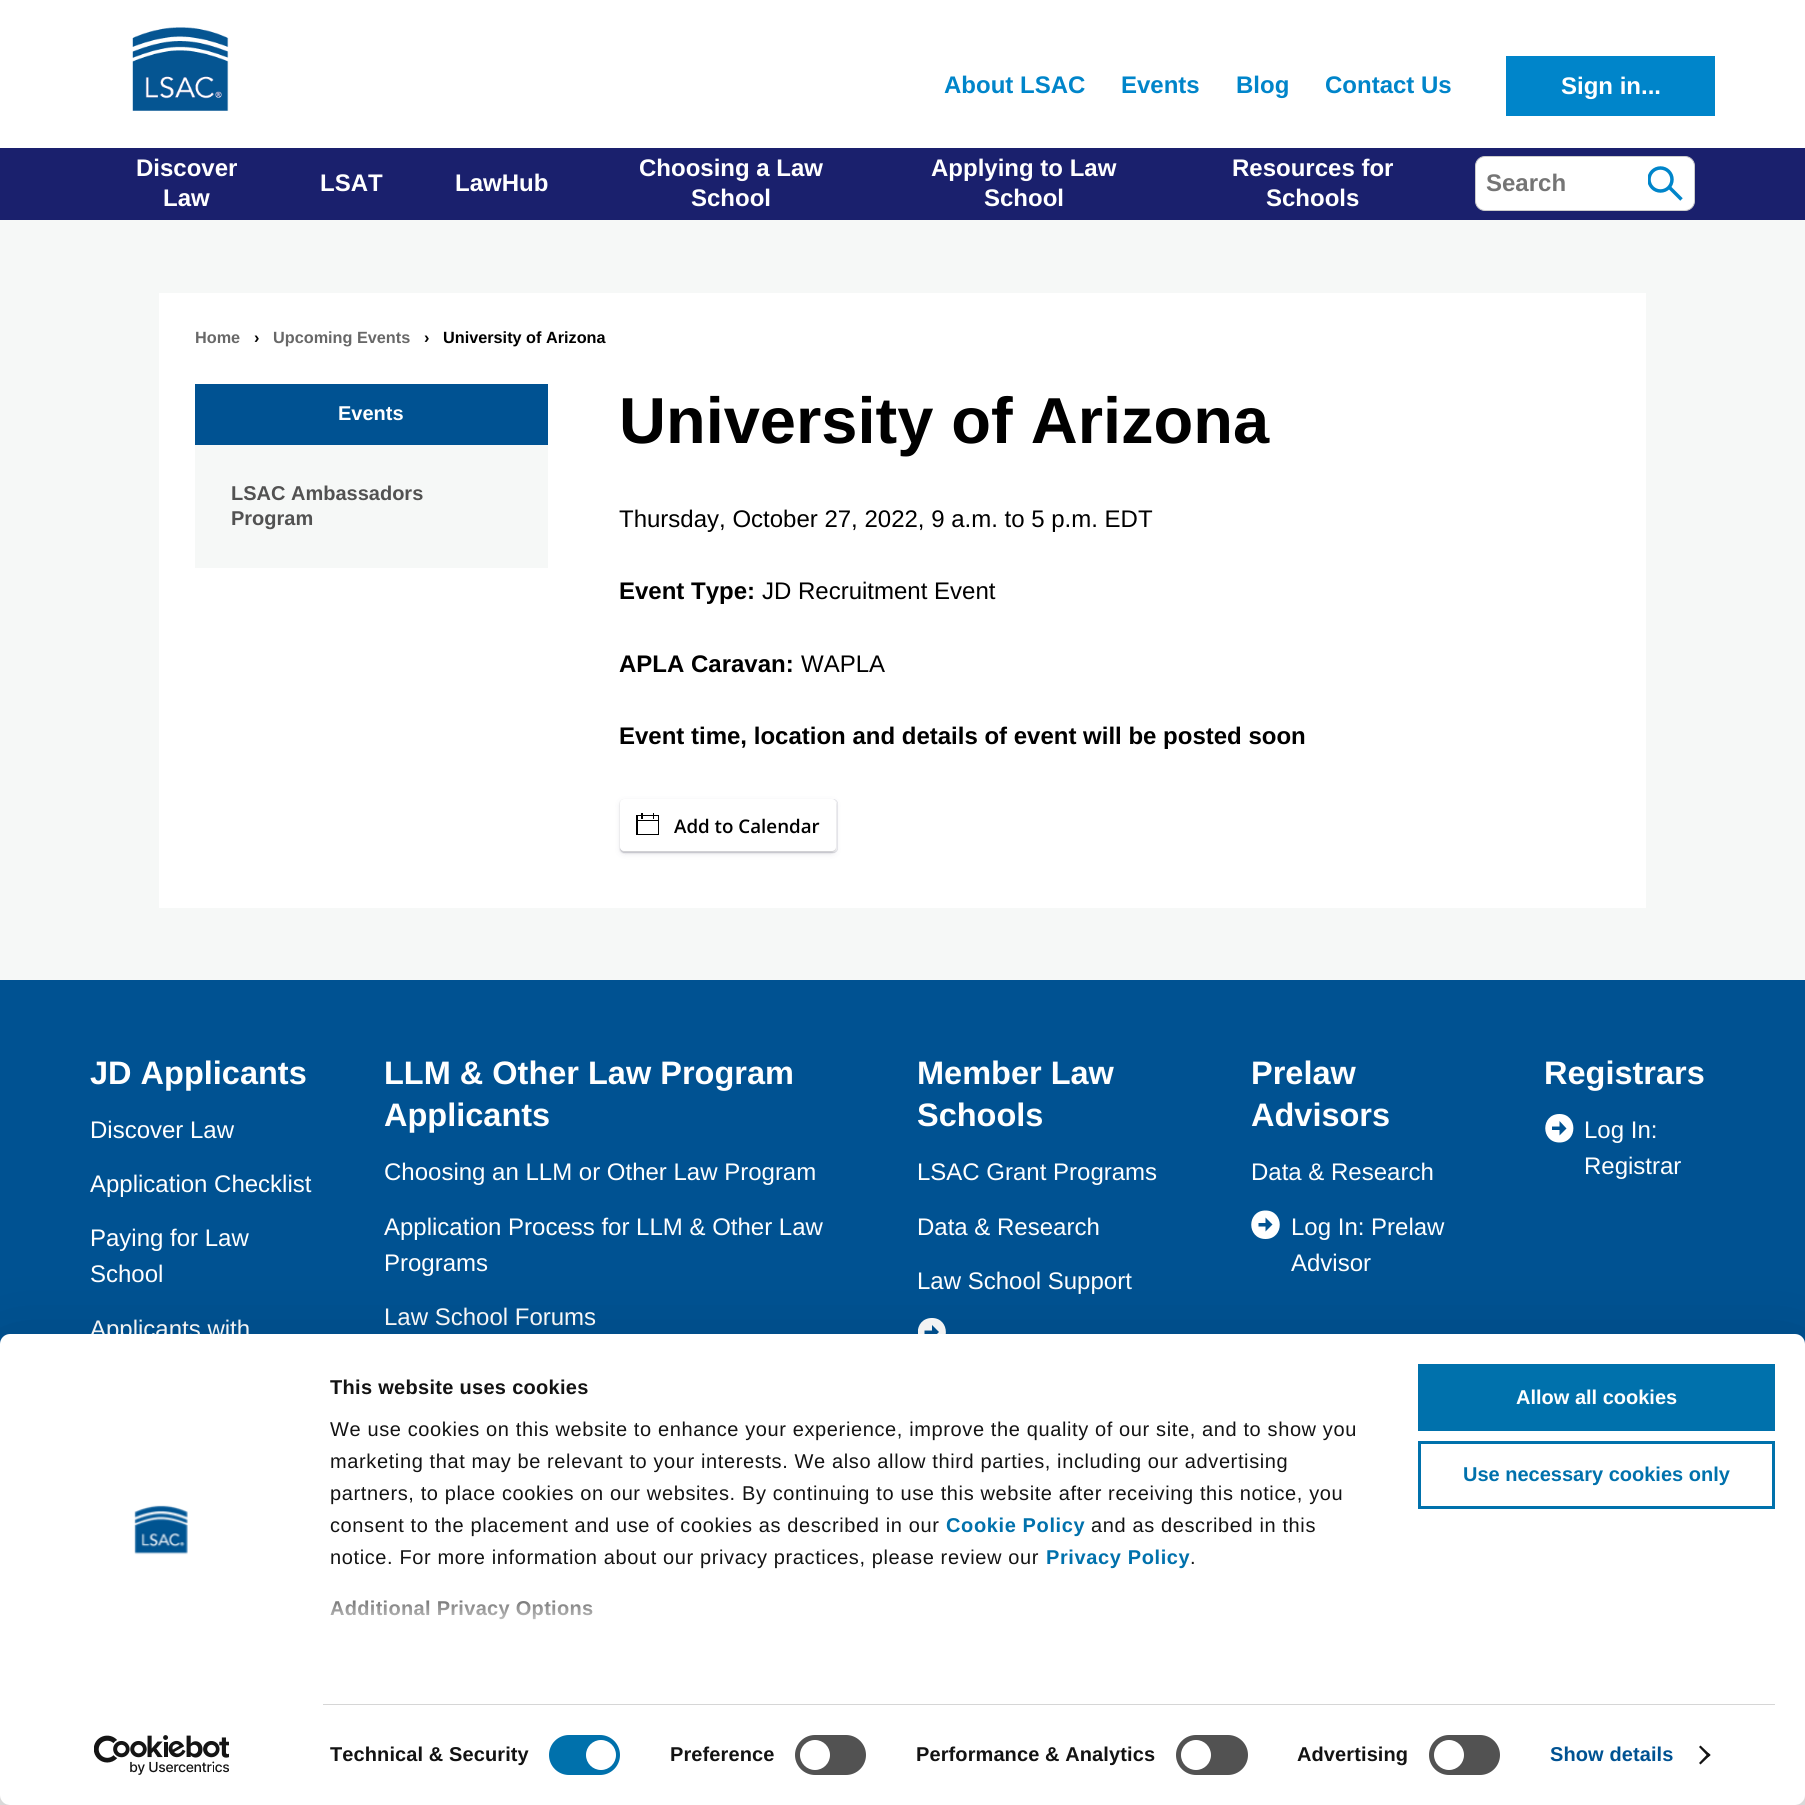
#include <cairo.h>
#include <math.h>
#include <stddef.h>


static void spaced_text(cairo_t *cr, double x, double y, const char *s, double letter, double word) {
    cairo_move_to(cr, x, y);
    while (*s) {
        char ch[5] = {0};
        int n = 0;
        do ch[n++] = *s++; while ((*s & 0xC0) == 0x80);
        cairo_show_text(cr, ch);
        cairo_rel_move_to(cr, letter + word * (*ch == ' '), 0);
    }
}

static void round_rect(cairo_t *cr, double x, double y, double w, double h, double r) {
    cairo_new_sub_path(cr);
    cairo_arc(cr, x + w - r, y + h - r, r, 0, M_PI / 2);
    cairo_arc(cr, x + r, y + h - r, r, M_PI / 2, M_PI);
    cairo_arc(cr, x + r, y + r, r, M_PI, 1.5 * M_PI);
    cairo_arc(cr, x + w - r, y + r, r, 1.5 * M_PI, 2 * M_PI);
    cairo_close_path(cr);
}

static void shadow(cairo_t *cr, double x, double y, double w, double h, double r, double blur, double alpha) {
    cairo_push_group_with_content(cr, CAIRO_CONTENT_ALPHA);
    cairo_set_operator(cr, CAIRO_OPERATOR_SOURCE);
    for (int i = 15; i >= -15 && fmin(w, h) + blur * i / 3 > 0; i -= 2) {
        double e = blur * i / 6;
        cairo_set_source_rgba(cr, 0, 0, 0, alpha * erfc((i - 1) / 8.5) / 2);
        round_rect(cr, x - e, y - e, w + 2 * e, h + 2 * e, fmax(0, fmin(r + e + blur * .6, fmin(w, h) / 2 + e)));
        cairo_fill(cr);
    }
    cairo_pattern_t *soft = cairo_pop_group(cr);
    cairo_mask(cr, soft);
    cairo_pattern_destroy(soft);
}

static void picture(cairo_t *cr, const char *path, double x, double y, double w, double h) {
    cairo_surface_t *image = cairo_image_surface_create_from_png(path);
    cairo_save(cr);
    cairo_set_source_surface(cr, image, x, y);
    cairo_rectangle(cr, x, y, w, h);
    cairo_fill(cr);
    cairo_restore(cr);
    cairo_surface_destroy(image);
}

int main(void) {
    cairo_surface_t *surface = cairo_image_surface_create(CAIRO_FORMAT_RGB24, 1805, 1805);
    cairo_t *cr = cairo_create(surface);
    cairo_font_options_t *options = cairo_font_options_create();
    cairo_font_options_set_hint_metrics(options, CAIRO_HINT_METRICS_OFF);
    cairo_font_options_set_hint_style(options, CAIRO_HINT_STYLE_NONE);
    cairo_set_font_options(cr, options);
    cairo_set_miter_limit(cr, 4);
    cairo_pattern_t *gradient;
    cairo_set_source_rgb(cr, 1, 1, 1);
    cairo_paint(cr);
    picture(cr, "img1.png", 132, 27, 97, 84);
    cairo_select_font_face(cr, "Liberation Sans", CAIRO_FONT_SLANT_NORMAL, CAIRO_FONT_WEIGHT_BOLD);
    cairo_set_font_size(cr, 24);
    cairo_set_source_rgb(cr, 0, 0.522, 0.792);
    cairo_move_to(cr, 944, 93);
    cairo_show_text(cr, "About LSAC");
    cairo_move_to(cr, 1121, 93);
    cairo_show_text(cr, "Events");
    cairo_move_to(cr, 1236, 93);
    cairo_show_text(cr, "Blog");
    cairo_move_to(cr, 1325, 93);
    cairo_show_text(cr, "Contact Us");
    cairo_rectangle(cr, 1506, 56, 209, 60);
    cairo_fill(cr);
    cairo_set_source_rgb(cr, 1, 1, 1);
    cairo_move_to(cr, 1561, 94);
    cairo_show_text(cr, "Sign in...");
    cairo_set_source_rgb(cr, 0.102, 0.125, 0.427);
    cairo_rectangle(cr, 0, 148, 1805, 72);
    cairo_fill(cr);
    cairo_set_source_rgb(cr, 1, 1, 1);
    cairo_move_to(cr, 136, 176);
    cairo_show_text(cr, "Discover");
    cairo_move_to(cr, 163, 206);
    cairo_show_text(cr, "Law");
    cairo_move_to(cr, 320, 191);
    cairo_show_text(cr, "LSAT");
    cairo_move_to(cr, 455, 191);
    cairo_show_text(cr, "LawHub");
    cairo_move_to(cr, 639, 176);
    cairo_show_text(cr, "Choosing a Law");
    cairo_move_to(cr, 691, 206);
    cairo_show_text(cr, "School");
    cairo_move_to(cr, 931, 176);
    cairo_show_text(cr, "Applying to Law");
    cairo_move_to(cr, 984, 206);
    cairo_show_text(cr, "School");
    cairo_move_to(cr, 1232, 176);
    cairo_show_text(cr, "Resources for");
    cairo_move_to(cr, 1266, 206);
    cairo_show_text(cr, "Schools");
    round_rect(cr, 1475.5, 156.5, 219, 54, 9.5);
    cairo_fill_preserve(cr);
    cairo_set_source_rgb(cr, 0.8, 0.8, 0.8);
    cairo_set_line_width(cr, 1);
    cairo_stroke(cr);
    cairo_set_source_rgb(cr, 0.459, 0.459, 0.459);
    cairo_move_to(cr, 1486, 191);
    cairo_show_text(cr, "Search");
    cairo_save(cr);
    cairo_rectangle(cr, 1648, 166, 35, 35);
    cairo_clip(cr);
    cairo_arc(cr, 1660.5, 179.5, 11.5, 0, 2 * M_PI);
    cairo_set_source_rgb(cr, 0, 0.522, 0.792);
    cairo_set_line_width(cr, 3.5);
    cairo_stroke(cr);
    cairo_restore(cr);
    cairo_new_path(cr);
    cairo_move_to(cr, 1669, 187);
    cairo_line_to(cr, 1681.5, 199.5);
    cairo_set_source_rgb(cr, 0, 0.522, 0.792);
    cairo_set_line_width(cr, 3.5);
    cairo_stroke(cr);
    cairo_set_source_rgb(cr, 0.961, 0.969, 0.965);
    cairo_rectangle(cr, 0, 220, 1805, 760);
    cairo_fill(cr);
    cairo_set_source_rgb(cr, 1, 1, 1);
    cairo_rectangle(cr, 159, 293, 1487, 615);
    cairo_fill(cr);
    cairo_set_font_size(cr, 16.25);
    cairo_set_source_rgb(cr, 0.408, 0.408, 0.408);
    cairo_move_to(cr, 195, 343);
    cairo_show_text(cr, "Home");
    cairo_set_source_rgb(cr, 0, 0, 0);
    cairo_move_to(cr, 254, 343);
    cairo_show_text(cr, "›");
    cairo_set_source_rgb(cr, 0.408, 0.408, 0.408);
    cairo_move_to(cr, 273, 343);
    cairo_show_text(cr, "Upcoming Events");
    cairo_set_source_rgb(cr, 0, 0, 0);
    cairo_move_to(cr, 424, 343);
    cairo_show_text(cr, "›");
    cairo_move_to(cr, 443, 343);
    cairo_show_text(cr, "University of Arizona");
    cairo_set_source_rgb(cr, 0, 0.322, 0.573);
    cairo_rectangle(cr, 195, 384, 353, 61);
    cairo_fill(cr);
    cairo_set_font_size(cr, 20);
    cairo_set_source_rgb(cr, 1, 1, 1);
    cairo_move_to(cr, 338, 420);
    cairo_show_text(cr, "Events");
    cairo_set_source_rgb(cr, 0.961, 0.969, 0.965);
    cairo_rectangle(cr, 195, 445, 353, 123);
    cairo_fill(cr);
    cairo_set_source_rgb(cr, 0.322, 0.322, 0.322);
    cairo_move_to(cr, 231, 500);
    cairo_show_text(cr, "LSAC Ambassadors");
    cairo_move_to(cr, 231, 525);
    cairo_show_text(cr, "Program");
    cairo_set_font_size(cr, 65);
    cairo_set_source_rgb(cr, 0, 0, 0);
    cairo_move_to(cr, 619, 443);
    cairo_show_text(cr, "University of Arizona");
    cairo_select_font_face(cr, "Liberation Sans", CAIRO_FONT_SLANT_NORMAL, CAIRO_FONT_WEIGHT_NORMAL);
    cairo_set_font_size(cr, 24);
    cairo_move_to(cr, 619, 527);
    cairo_show_text(cr, "Thursday, October 27, 2022, 9 a.m. to 5 p.m. EDT");
    cairo_select_font_face(cr, "Liberation Sans", CAIRO_FONT_SLANT_NORMAL, CAIRO_FONT_WEIGHT_BOLD);
    cairo_move_to(cr, 619, 599);
    cairo_show_text(cr, "Event Type:");
    cairo_select_font_face(cr, "Liberation Sans", CAIRO_FONT_SLANT_NORMAL, CAIRO_FONT_WEIGHT_NORMAL);
    cairo_move_to(cr, 762, 599);
    cairo_show_text(cr, "JD Recruitment Event");
    cairo_select_font_face(cr, "Liberation Sans", CAIRO_FONT_SLANT_NORMAL, CAIRO_FONT_WEIGHT_BOLD);
    cairo_move_to(cr, 619, 672);
    cairo_show_text(cr, "APLA Caravan:");
    cairo_select_font_face(cr, "Liberation Sans", CAIRO_FONT_SLANT_NORMAL, CAIRO_FONT_WEIGHT_NORMAL);
    cairo_move_to(cr, 801, 672);
    cairo_show_text(cr, "WAPLA");
    cairo_select_font_face(cr, "Liberation Sans", CAIRO_FONT_SLANT_NORMAL, CAIRO_FONT_WEIGHT_BOLD);
    cairo_move_to(cr, 619, 744);
    cairo_show_text(cr, "Event time, location and details of event will be posted soon");
    cairo_set_source_rgb(cr, 0, 0, 0);
    shadow(cr, 620, 800, 216, 53, 4, 1, 0.08);
    shadow(cr, 620, 800, 216, 53, 4, 1, 0.07);
    cairo_set_source_rgb(cr, 0.196, 0.196, 0.365);
    shadow(cr, 620, 801, 216, 53, 4, 3, 0.1);
    round_rect(cr, 620.3, 799.3, 217.4, 53.4, 4.7);
    cairo_set_source_rgba(cr, 0.196, 0.196, 0.365, 0.17);
    cairo_set_line_width(cr, 0.6);
    cairo_stroke(cr);
    cairo_set_source_rgb(cr, 1, 1, 1);
    round_rect(cr, 620, 799, 216, 52, 4);
    cairo_fill(cr);
    picture(cr, "img2.png", 636, 813, 23, 22);
    cairo_select_font_face(cr, "Open Sans SemiBold", CAIRO_FONT_SLANT_NORMAL, CAIRO_FONT_WEIGHT_NORMAL);
    cairo_set_font_size(cr, 18.75);
    cairo_set_source_rgb(cr, 0, 0, 0);
    cairo_move_to(cr, 674, 833);
    cairo_show_text(cr, "Add to Calendar");
    cairo_set_source_rgb(cr, 0, 0.322, 0.573);
    cairo_rectangle(cr, 0, 980, 1805, 364);
    cairo_fill(cr);
    cairo_select_font_face(cr, "Liberation Sans", CAIRO_FONT_SLANT_NORMAL, CAIRO_FONT_WEIGHT_BOLD);
    cairo_set_font_size(cr, 32.5);
    cairo_set_source_rgb(cr, 1, 1, 1);
    cairo_move_to(cr, 90, 1084);
    cairo_show_text(cr, "JD Applicants");
    cairo_select_font_face(cr, "Liberation Sans", CAIRO_FONT_SLANT_NORMAL, CAIRO_FONT_WEIGHT_NORMAL);
    cairo_set_font_size(cr, 24);
    cairo_move_to(cr, 90, 1138);
    cairo_show_text(cr, "Discover Law");
    cairo_move_to(cr, 90, 1192);
    cairo_show_text(cr, "Application Checklist");
    cairo_move_to(cr, 90, 1246);
    cairo_show_text(cr, "Paying for Law");
    cairo_move_to(cr, 90, 1282);
    cairo_show_text(cr, "School");
    cairo_move_to(cr, 90, 1337);
    cairo_show_text(cr, "Applicants with");
    cairo_select_font_face(cr, "Liberation Sans", CAIRO_FONT_SLANT_NORMAL, CAIRO_FONT_WEIGHT_BOLD);
    cairo_set_font_size(cr, 32.5);
    cairo_move_to(cr, 384, 1084);
    cairo_show_text(cr, "LLM & Other Law Program");
    cairo_move_to(cr, 384, 1126);
    cairo_show_text(cr, "Applicants");
    cairo_select_font_face(cr, "Liberation Sans", CAIRO_FONT_SLANT_NORMAL, CAIRO_FONT_WEIGHT_NORMAL);
    cairo_set_font_size(cr, 24);
    cairo_move_to(cr, 384, 1180);
    cairo_show_text(cr, "Choosing an LLM or Other Law Program");
    cairo_move_to(cr, 384, 1235);
    cairo_show_text(cr, "Application Process for LLM & Other Law");
    cairo_move_to(cr, 384, 1271);
    cairo_show_text(cr, "Programs");
    cairo_move_to(cr, 384, 1325);
    cairo_show_text(cr, "Law School Forums");
    cairo_select_font_face(cr, "Liberation Sans", CAIRO_FONT_SLANT_NORMAL, CAIRO_FONT_WEIGHT_BOLD);
    cairo_set_font_size(cr, 32.5);
    cairo_move_to(cr, 917, 1084);
    cairo_show_text(cr, "Member Law");
    cairo_move_to(cr, 917, 1126);
    cairo_show_text(cr, "Schools");
    cairo_select_font_face(cr, "Liberation Sans", CAIRO_FONT_SLANT_NORMAL, CAIRO_FONT_WEIGHT_NORMAL);
    cairo_set_font_size(cr, 24);
    cairo_move_to(cr, 917, 1180);
    cairo_show_text(cr, "LSAC Grant Programs");
    cairo_move_to(cr, 917, 1235);
    cairo_show_text(cr, "Data & Research");
    cairo_move_to(cr, 917, 1289);
    cairo_show_text(cr, "Law School Support");
    cairo_save(cr);
    cairo_rectangle(cr, 918, 1318, 28, 30);
    cairo_clip(cr);
    cairo_new_path(cr);
    cairo_move_to(cr, 932, 1318);
    cairo_curve_to(cr, 913, 1318, 913, 1346.5, 932, 1346.5);
    cairo_curve_to(cr, 950.5, 1346.5, 950.5, 1318, 932, 1318);
    cairo_close_path(cr);
    cairo_move_to(cr, 932, 1339);
    cairo_line_to(cr, 932, 1334);
    cairo_line_to(cr, 924.5, 1334);
    cairo_line_to(cr, 924.5, 1330.5);
    cairo_line_to(cr, 932, 1330.5);
    cairo_line_to(cr, 932, 1325);
    cairo_line_to(cr, 939, 1332);
    cairo_close_path(cr);
    cairo_fill(cr);
    cairo_restore(cr);
    cairo_select_font_face(cr, "Liberation Sans", CAIRO_FONT_SLANT_NORMAL, CAIRO_FONT_WEIGHT_BOLD);
    cairo_set_font_size(cr, 32.5);
    cairo_move_to(cr, 1251, 1084);
    cairo_show_text(cr, "Prelaw");
    cairo_move_to(cr, 1251, 1126);
    cairo_show_text(cr, "Advisors");
    cairo_select_font_face(cr, "Liberation Sans", CAIRO_FONT_SLANT_NORMAL, CAIRO_FONT_WEIGHT_NORMAL);
    cairo_set_font_size(cr, 24);
    cairo_move_to(cr, 1251, 1180);
    cairo_show_text(cr, "Data & Research");
    cairo_new_path(cr);
    cairo_move_to(cr, 1265.5, 1210.5);
    cairo_curve_to(cr, 1246.5, 1210.5, 1246.5, 1239, 1265.5, 1239);
    cairo_curve_to(cr, 1284.5, 1239, 1284.5, 1210.5, 1265.5, 1210.5);
    cairo_close_path(cr);
    cairo_move_to(cr, 1265.5, 1231.5);
    cairo_line_to(cr, 1265.5, 1226.5);
    cairo_line_to(cr, 1258.5, 1226.5);
    cairo_line_to(cr, 1258.5, 1223);
    cairo_line_to(cr, 1265.5, 1223);
    cairo_line_to(cr, 1265.5, 1217.5);
    cairo_line_to(cr, 1272.5, 1224.5);
    cairo_close_path(cr);
    cairo_fill(cr);
    cairo_move_to(cr, 1291, 1235);
    cairo_show_text(cr, "Log In: Prelaw");
    cairo_move_to(cr, 1291, 1271);
    cairo_show_text(cr, "Advisor");
    cairo_select_font_face(cr, "Liberation Sans", CAIRO_FONT_SLANT_NORMAL, CAIRO_FONT_WEIGHT_BOLD);
    cairo_set_font_size(cr, 32.5);
    cairo_move_to(cr, 1544, 1084);
    cairo_show_text(cr, "Registrars");
    cairo_new_path(cr);
    cairo_move_to(cr, 1559.5, 1114);
    cairo_curve_to(cr, 1540.5, 1114, 1540.5, 1142.5, 1559.5, 1142.5);
    cairo_curve_to(cr, 1578, 1142.5, 1578, 1114, 1559.5, 1114);
    cairo_close_path(cr);
    cairo_move_to(cr, 1559.5, 1135.5);
    cairo_line_to(cr, 1559.5, 1130);
    cairo_line_to(cr, 1552, 1130);
    cairo_line_to(cr, 1552, 1126.5);
    cairo_line_to(cr, 1559.5, 1126.5);
    cairo_line_to(cr, 1559.5, 1121);
    cairo_line_to(cr, 1566.5, 1128.5);
    cairo_close_path(cr);
    cairo_fill(cr);
    cairo_select_font_face(cr, "Liberation Sans", CAIRO_FONT_SLANT_NORMAL, CAIRO_FONT_WEIGHT_NORMAL);
    cairo_set_font_size(cr, 24);
    cairo_move_to(cr, 1584, 1138);
    cairo_show_text(cr, "Log In:");
    cairo_move_to(cr, 1584, 1174);
    cairo_show_text(cr, "Registrar");
    cairo_set_source_rgb(cr, 0, 0, 0);
    shadow(cr, 0, 1371, 1805, 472, 10, 44, 0.3);
    cairo_set_source_rgb(cr, 1, 1, 1);
    round_rect(cr, 0, 1334, 1805, 471, 10);
    cairo_fill(cr);
    cairo_select_font_face(cr, "Liberation Sans", CAIRO_FONT_SLANT_NORMAL, CAIRO_FONT_WEIGHT_BOLD);
    cairo_set_font_size(cr, 20);
    cairo_set_source_rgb(cr, 0.078, 0.078, 0.078);
    spaced_text(cr, 330, 1394, "This website uses cookies", 0.3, 0);
    cairo_select_font_face(cr, "Liberation Sans", CAIRO_FONT_SLANT_NORMAL, CAIRO_FONT_WEIGHT_NORMAL);
    spaced_text(cr, 330, 1436, "We use cookies on this website to enhance your experience, improve the quality of our site, and to show you", 0.62, 0);
    spaced_text(cr, 330, 1468, "marketing that may be relevant to your interests. We also allow third parties, including our advertising", 0.62, 0);
    spaced_text(cr, 330, 1500, "partners, to place cookies on our websites. By continuing to use this website after receiving this notice, you", 0.62, 0);
    spaced_text(cr, 330, 1532, "consent to the placement and use of cookies as described in our", 0.62, 0);
    cairo_select_font_face(cr, "Liberation Sans", CAIRO_FONT_SLANT_NORMAL, CAIRO_FONT_WEIGHT_BOLD);
    cairo_set_source_rgb(cr, 0, 0.443, 0.675);
    spaced_text(cr, 946, 1532, "Cookie Policy", 0.62, 0);
    cairo_select_font_face(cr, "Liberation Sans", CAIRO_FONT_SLANT_NORMAL, CAIRO_FONT_WEIGHT_NORMAL);
    cairo_set_source_rgb(cr, 0.078, 0.078, 0.078);
    spaced_text(cr, 1091, 1532, "and as described in this", 0.62, 0);
    spaced_text(cr, 330, 1564, "notice. For more information about our privacy practices, please review our", 0.62, 0);
    cairo_select_font_face(cr, "Liberation Sans", CAIRO_FONT_SLANT_NORMAL, CAIRO_FONT_WEIGHT_BOLD);
    cairo_set_source_rgb(cr, 0, 0.443, 0.675);
    spaced_text(cr, 1046, 1564, "Privacy Policy", 0.62, 0);
    cairo_select_font_face(cr, "Liberation Sans", CAIRO_FONT_SLANT_NORMAL, CAIRO_FONT_WEIGHT_NORMAL);
    cairo_set_source_rgb(cr, 0.078, 0.078, 0.078);
    spaced_text(cr, 1190, 1564, ".", 0.62, 0);
    cairo_select_font_face(cr, "Liberation Sans", CAIRO_FONT_SLANT_NORMAL, CAIRO_FONT_WEIGHT_BOLD);
    spaced_text(cr, 330, 1615, "Additional Privacy Options", 0.3, 0);
    gradient = cairo_pattern_create_linear(841, 1674, 841, 1574);
    cairo_pattern_add_color_stop_rgba(gradient, 0, 1, 1, 1, 1);
    cairo_pattern_add_color_stop_rgba(gradient, 0.5, 1, 1, 1, 0.8);
    cairo_pattern_add_color_stop_rgba(gradient, 1, 1, 1, 1, 0);
    cairo_set_source(cr, gradient);
    cairo_pattern_destroy(gradient);
    cairo_rectangle(cr, 330, 1600, 263, 20);
    cairo_fill(cr);
    cairo_set_source_rgb(cr, 0.839, 0.839, 0.839);
    cairo_rectangle(cr, 323, 1704, 1452, 1);
    cairo_fill(cr);
    cairo_set_source_rgb(cr, 0.078, 0.078, 0.078);
    spaced_text(cr, 330, 1761, "Technical & Security", 0.1, 0);
    cairo_set_source_rgb(cr, 0, 0.443, 0.675);
    round_rect(cr, 549, 1735, 71, 40, 20);
    cairo_fill(cr);
    cairo_set_source_rgb(cr, 1, 1, 1);
    cairo_arc(cr, 601, 1755, 15, 0, 2 * M_PI);
    cairo_fill(cr);
    cairo_set_source_rgb(cr, 0.078, 0.078, 0.078);
    spaced_text(cr, 670, 1761, "Preference", 0.1, 0);
    cairo_set_source_rgb(cr, 0.322, 0.322, 0.322);
    round_rect(cr, 795, 1735, 71, 40, 20);
    cairo_fill(cr);
    cairo_set_source_rgb(cr, 1, 1, 1);
    cairo_arc(cr, 815, 1755, 15, 0, 2 * M_PI);
    cairo_fill(cr);
    cairo_set_source_rgb(cr, 0.078, 0.078, 0.078);
    spaced_text(cr, 916, 1761, "Performance & Analytics", 0.1, 0);
    cairo_set_source_rgb(cr, 0.322, 0.322, 0.322);
    round_rect(cr, 1176, 1735, 72, 40, 20);
    cairo_fill(cr);
    cairo_set_source_rgb(cr, 1, 1, 1);
    cairo_arc(cr, 1196, 1755, 15, 0, 2 * M_PI);
    cairo_fill(cr);
    cairo_set_source_rgb(cr, 0.078, 0.078, 0.078);
    spaced_text(cr, 1297, 1761, "Advertising", 0.1, 0);
    cairo_set_source_rgb(cr, 0.322, 0.322, 0.322);
    round_rect(cr, 1429, 1735, 71, 40, 20);
    cairo_fill(cr);
    cairo_set_source_rgb(cr, 1, 1, 1);
    cairo_arc(cr, 1449, 1755, 15, 0, 2 * M_PI);
    cairo_fill(cr);
    cairo_set_source_rgb(cr, 0, 0.322, 0.573);
    spaced_text(cr, 1550, 1761, "Show details", 0.1, 0);
    cairo_set_source_rgb(cr, 0.078, 0.078, 0.078);
    cairo_new_path(cr);
    cairo_move_to(cr, 1700.5, 1745.5);
    cairo_line_to(cr, 1710.5, 1755);
    cairo_line_to(cr, 1708.5, 1757);
    cairo_line_to(cr, 1699, 1747);
    cairo_close_path(cr);
    cairo_fill(cr);
    cairo_new_path(cr);
    cairo_move_to(cr, 1708.5, 1753);
    cairo_line_to(cr, 1710.5, 1755);
    cairo_line_to(cr, 1700.5, 1764.5);
    cairo_line_to(cr, 1699, 1763);
    cairo_close_path(cr);
    cairo_fill(cr);
    cairo_set_source_rgb(cr, 0, 0.443, 0.675);
    cairo_rectangle(cr, 1418, 1364, 357, 67);
    cairo_fill(cr);
    cairo_set_source_rgb(cr, 1, 1, 1);
    cairo_move_to(cr, 1516, 1404);
    cairo_show_text(cr, "Allow all cookies");
    cairo_rectangle(cr, 1419.5, 1442.5, 354, 65);
    cairo_set_source_rgb(cr, 0, 0.443, 0.675);
    cairo_set_line_width(cr, 3);
    cairo_stroke(cr);
    cairo_move_to(cr, 1463, 1481);
    cairo_show_text(cr, "Use necessary cookies only");
    picture(cr, "img3.png", 134, 1505, 54, 50);
    picture(cr, "img4.png", 94, 1735, 135, 40);
    cairo_surface_write_to_png(surface, "page.png");
    cairo_font_options_destroy(options);
    cairo_destroy(cr);
    cairo_surface_destroy(surface);
    return 0;
}
